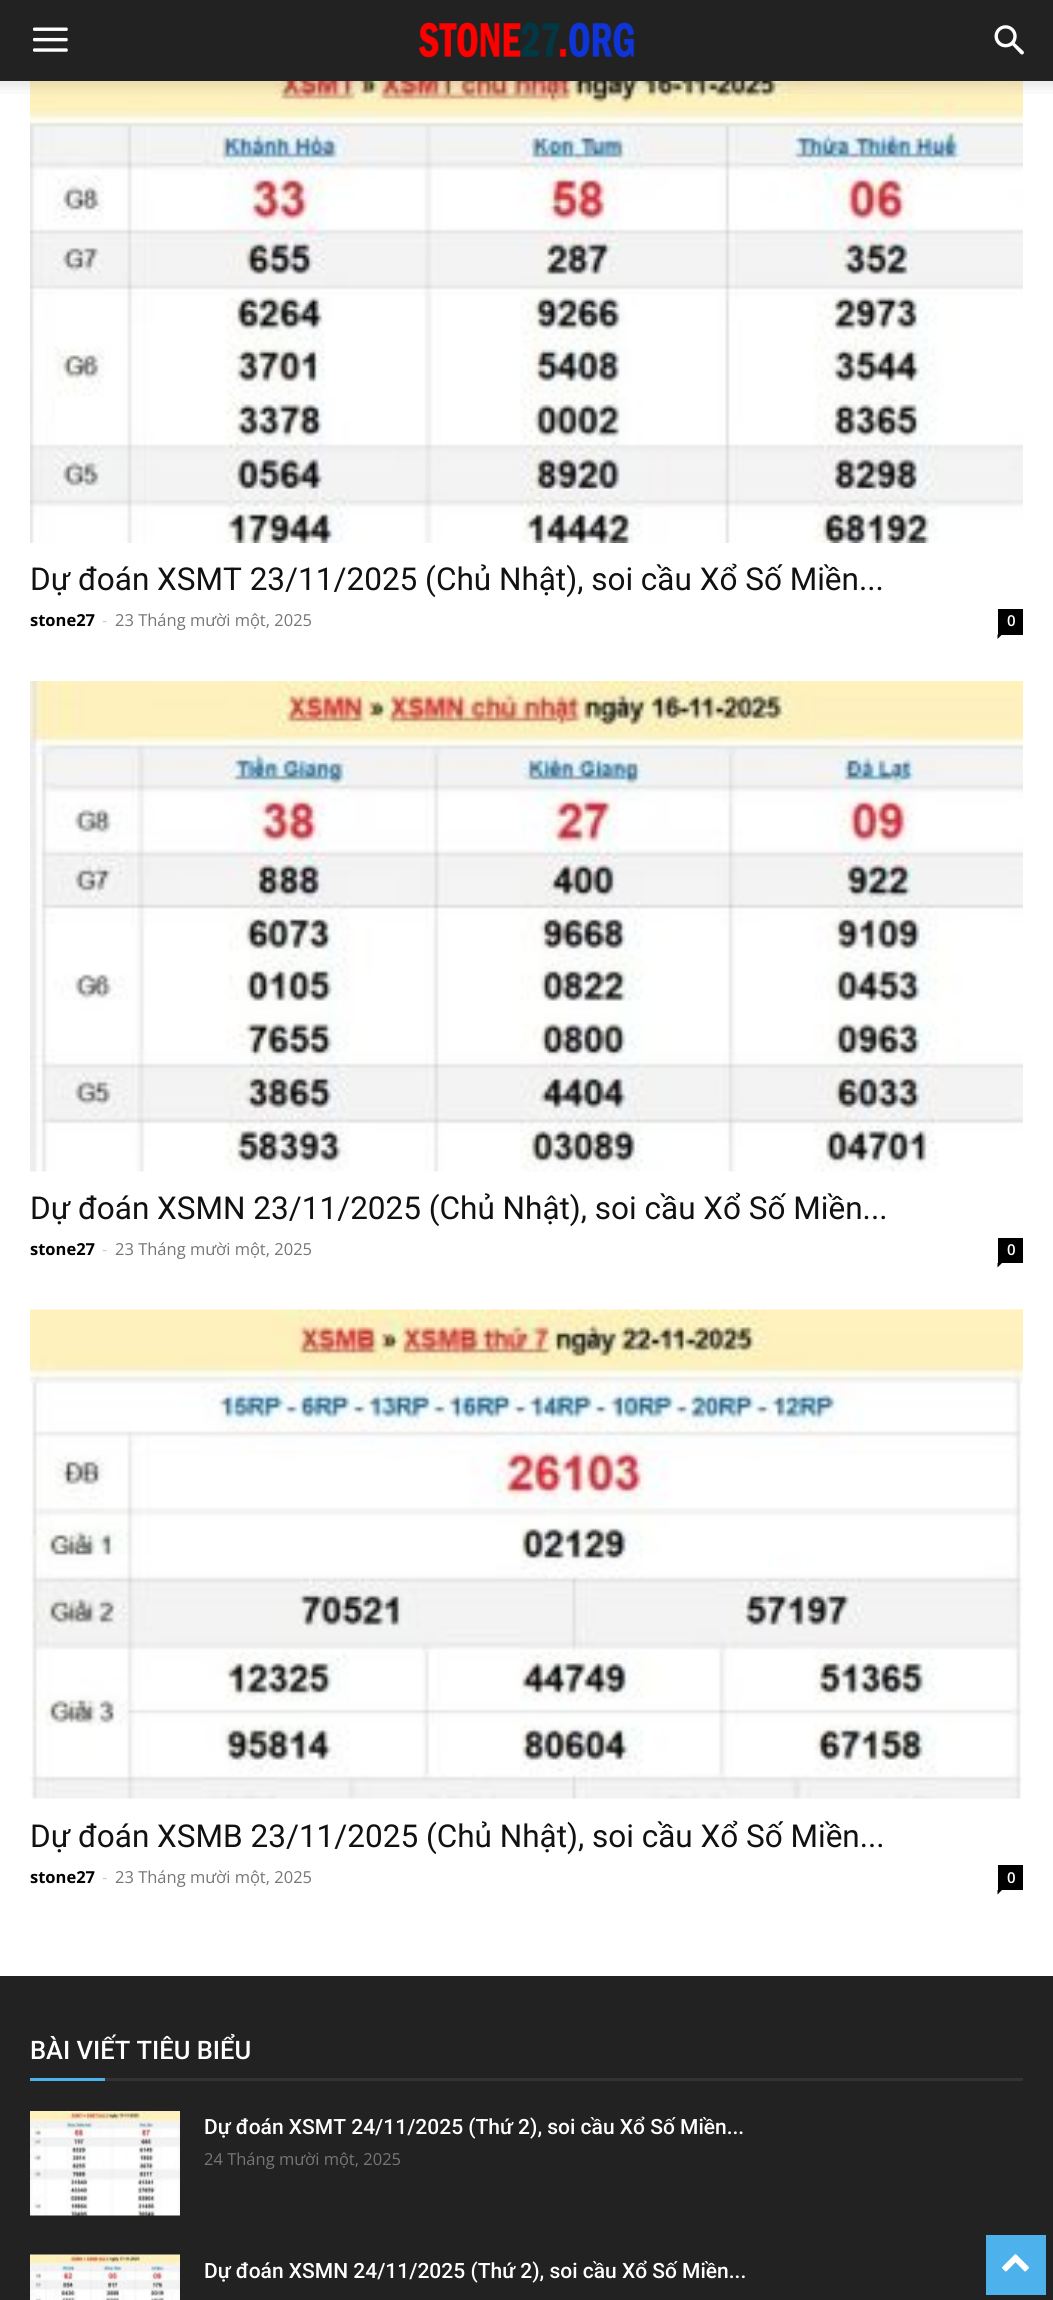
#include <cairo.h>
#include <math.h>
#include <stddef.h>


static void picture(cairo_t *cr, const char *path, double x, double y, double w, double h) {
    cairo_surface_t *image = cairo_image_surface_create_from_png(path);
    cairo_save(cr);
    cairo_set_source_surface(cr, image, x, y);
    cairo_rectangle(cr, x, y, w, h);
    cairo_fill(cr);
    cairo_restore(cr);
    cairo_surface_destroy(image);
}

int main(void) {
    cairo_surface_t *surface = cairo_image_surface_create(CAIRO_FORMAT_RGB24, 1053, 2300);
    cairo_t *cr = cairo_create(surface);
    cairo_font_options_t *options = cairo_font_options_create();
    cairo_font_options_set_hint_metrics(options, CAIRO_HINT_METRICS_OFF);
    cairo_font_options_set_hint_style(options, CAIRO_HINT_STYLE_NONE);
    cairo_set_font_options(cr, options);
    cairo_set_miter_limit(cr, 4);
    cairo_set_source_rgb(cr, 1, 1, 1);
    cairo_paint(cr);
    cairo_set_source_rgb(cr, 0.133, 0.133, 0.133);
    cairo_rectangle(cr, 0, 0, 1053, 81);
    cairo_fill(cr);
    picture(cr, "img1.png", 33, 27, 35, 25);
    picture(cr, "img2.png", 418, 22, 217, 36);
    picture(cr, "img3.png", 994, 25, 30, 30);
    picture(cr, "img5.png", 30, 81, 993, 462);
    picture(cr, "img4.png", 0, 81, 1053, 13);
    cairo_select_font_face(cr, "Roboto", CAIRO_FONT_SLANT_NORMAL, CAIRO_FONT_WEIGHT_NORMAL);
    cairo_set_font_size(cr, 31.5);
    cairo_set_source_rgb(cr, 0.067, 0.067, 0.067);
    cairo_move_to(cr, 30, 590);
    cairo_show_text(cr, "Dự đoán XSMT 23/11/2025 (Chủ Nhật), soi cầu Xổ Số Miền...");
    cairo_select_font_face(cr, "Open Sans", CAIRO_FONT_SLANT_NORMAL, CAIRO_FONT_WEIGHT_BOLD);
    cairo_set_font_size(cr, 16.5);
    cairo_set_source_rgb(cr, 0, 0, 0);
    cairo_move_to(cr, 30, 626);
    cairo_show_text(cr, "stone27");
    cairo_select_font_face(cr, "Open Sans", CAIRO_FONT_SLANT_NORMAL, CAIRO_FONT_WEIGHT_NORMAL);
    cairo_set_source_rgb(cr, 0.8, 0.8, 0.8);
    cairo_move_to(cr, 102, 626);
    cairo_show_text(cr, "-");
    cairo_set_source_rgb(cr, 0.463, 0.463, 0.463);
    cairo_move_to(cr, 115, 626);
    cairo_show_text(cr, "23 Tháng mười một, 2025");
    cairo_set_source_rgb(cr, 0, 0, 0);
    cairo_rectangle(cr, 998, 609, 25, 26);
    cairo_fill(cr);
    cairo_select_font_face(cr, "Open Sans SemiBold", CAIRO_FONT_SLANT_NORMAL, CAIRO_FONT_WEIGHT_NORMAL);
    cairo_set_font_size(cr, 15);
    cairo_set_source_rgb(cr, 1, 1, 1);
    cairo_move_to(cr, 1007, 626);
    cairo_show_text(cr, "0");
    cairo_set_source_rgb(cr, 0, 0, 0);
    cairo_new_path(cr);
    cairo_move_to(cr, 997.5, 634.5);
    cairo_line_to(cr, 1002, 634.5);
    cairo_line_to(cr, 997.5, 639);
    cairo_close_path(cr);
    cairo_fill(cr);
    picture(cr, "img6.png", 30, 681, 993, 491);
    cairo_select_font_face(cr, "Roboto", CAIRO_FONT_SLANT_NORMAL, CAIRO_FONT_WEIGHT_NORMAL);
    cairo_set_font_size(cr, 31.5);
    cairo_set_source_rgb(cr, 0.067, 0.067, 0.067);
    cairo_move_to(cr, 30, 1219);
    cairo_show_text(cr, "Dự đoán XSMN 23/11/2025 (Chủ Nhật), soi cầu Xổ Số Miền...");
    cairo_select_font_face(cr, "Open Sans", CAIRO_FONT_SLANT_NORMAL, CAIRO_FONT_WEIGHT_BOLD);
    cairo_set_font_size(cr, 16.5);
    cairo_set_source_rgb(cr, 0, 0, 0);
    cairo_move_to(cr, 30, 1255);
    cairo_show_text(cr, "stone27");
    cairo_select_font_face(cr, "Open Sans", CAIRO_FONT_SLANT_NORMAL, CAIRO_FONT_WEIGHT_NORMAL);
    cairo_set_source_rgb(cr, 0.8, 0.8, 0.8);
    cairo_move_to(cr, 102, 1255);
    cairo_show_text(cr, "-");
    cairo_set_source_rgb(cr, 0.463, 0.463, 0.463);
    cairo_move_to(cr, 115, 1255);
    cairo_show_text(cr, "23 Tháng mười một, 2025");
    cairo_set_source_rgb(cr, 0, 0, 0);
    cairo_rectangle(cr, 998, 1238, 25, 25);
    cairo_fill(cr);
    cairo_select_font_face(cr, "Open Sans SemiBold", CAIRO_FONT_SLANT_NORMAL, CAIRO_FONT_WEIGHT_NORMAL);
    cairo_set_font_size(cr, 15);
    cairo_set_source_rgb(cr, 1, 1, 1);
    cairo_move_to(cr, 1007, 1255);
    cairo_show_text(cr, "0");
    cairo_set_source_rgb(cr, 0, 0, 0);
    cairo_new_path(cr);
    cairo_move_to(cr, 997.5, 1263);
    cairo_line_to(cr, 1002, 1263);
    cairo_line_to(cr, 997.5, 1267.5);
    cairo_close_path(cr);
    cairo_fill(cr);
    picture(cr, "img7.png", 30, 1309, 993, 490);
    cairo_select_font_face(cr, "Roboto", CAIRO_FONT_SLANT_NORMAL, CAIRO_FONT_WEIGHT_NORMAL);
    cairo_set_font_size(cr, 31.5);
    cairo_set_source_rgb(cr, 0.067, 0.067, 0.067);
    cairo_move_to(cr, 30, 1847);
    cairo_show_text(cr, "Dự đoán XSMB 23/11/2025 (Chủ Nhật), soi cầu Xổ Số Miền...");
    cairo_select_font_face(cr, "Open Sans", CAIRO_FONT_SLANT_NORMAL, CAIRO_FONT_WEIGHT_BOLD);
    cairo_set_font_size(cr, 16.5);
    cairo_set_source_rgb(cr, 0, 0, 0);
    cairo_move_to(cr, 30, 1883);
    cairo_show_text(cr, "stone27");
    cairo_select_font_face(cr, "Open Sans", CAIRO_FONT_SLANT_NORMAL, CAIRO_FONT_WEIGHT_NORMAL);
    cairo_set_source_rgb(cr, 0.8, 0.8, 0.8);
    cairo_move_to(cr, 102, 1883);
    cairo_show_text(cr, "-");
    cairo_set_source_rgb(cr, 0.463, 0.463, 0.463);
    cairo_move_to(cr, 115, 1883);
    cairo_show_text(cr, "23 Tháng mười một, 2025");
    cairo_set_source_rgb(cr, 0, 0, 0);
    cairo_rectangle(cr, 998, 1865, 25, 25);
    cairo_fill(cr);
    cairo_select_font_face(cr, "Open Sans SemiBold", CAIRO_FONT_SLANT_NORMAL, CAIRO_FONT_WEIGHT_NORMAL);
    cairo_set_font_size(cr, 15);
    cairo_set_source_rgb(cr, 1, 1, 1);
    cairo_move_to(cr, 1007, 1883);
    cairo_show_text(cr, "0");
    cairo_set_source_rgb(cr, 0, 0, 0);
    cairo_new_path(cr);
    cairo_move_to(cr, 997.5, 1890);
    cairo_line_to(cr, 1002, 1890);
    cairo_line_to(cr, 997.5, 1894.5);
    cairo_close_path(cr);
    cairo_fill(cr);
    cairo_set_source_rgb(cr, 0.133, 0.133, 0.133);
    cairo_rectangle(cr, 0, 1976, 1053, 324);
    cairo_fill(cr);
    cairo_select_font_face(cr, "Roboto Medium", CAIRO_FONT_SLANT_NORMAL, CAIRO_FONT_WEIGHT_NORMAL);
    cairo_set_font_size(cr, 25.5);
    cairo_set_source_rgb(cr, 1, 1, 1);
    cairo_move_to(cr, 30, 2059);
    cairo_show_text(cr, "BÀI VIẾT TIÊU BIỂU");
    cairo_set_source_rgb(cr, 0.302, 0.698, 0.925);
    cairo_rectangle(cr, 30, 2078, 75, 3);
    cairo_fill(cr);
    cairo_set_source_rgb(cr, 0.2, 0.2, 0.2);
    cairo_rectangle(cr, 105, 2078, 918, 3);
    cairo_fill(cr);
    picture(cr, "img8.png", 30, 2111, 150, 105);
    cairo_set_font_size(cr, 21);
    cairo_set_source_rgb(cr, 1, 1, 1);
    cairo_move_to(cr, 204, 2134);
    cairo_show_text(cr, "Dự đoán XSMT 24/11/2025 (Thứ 2), soi cầu Xổ Số Miền...");
    cairo_select_font_face(cr, "Open Sans", CAIRO_FONT_SLANT_NORMAL, CAIRO_FONT_WEIGHT_NORMAL);
    cairo_set_font_size(cr, 16.5);
    cairo_set_source_rgb(cr, 0.463, 0.463, 0.463);
    cairo_move_to(cr, 204, 2165);
    cairo_show_text(cr, "24 Tháng mười một, 2025");
    picture(cr, "img9.png", 30, 2254, 150, 46);
    cairo_select_font_face(cr, "Roboto Medium", CAIRO_FONT_SLANT_NORMAL, CAIRO_FONT_WEIGHT_NORMAL);
    cairo_set_font_size(cr, 21);
    cairo_set_source_rgb(cr, 1, 1, 1);
    cairo_move_to(cr, 204, 2278);
    cairo_show_text(cr, "Dự đoán XSMN 24/11/2025 (Thứ 2), soi cầu Xổ Số Miền...");
    cairo_set_source_rgb(cr, 0.302, 0.698, 0.925);
    cairo_rectangle(cr, 986, 2235, 60, 60);
    cairo_fill(cr);
    picture(cr, "img10.png", 1002, 2254, 27, 18);
    cairo_surface_write_to_png(surface, "page.png");
    cairo_font_options_destroy(options);
    cairo_destroy(cr);
    cairo_surface_destroy(surface);
    return 0;
}
